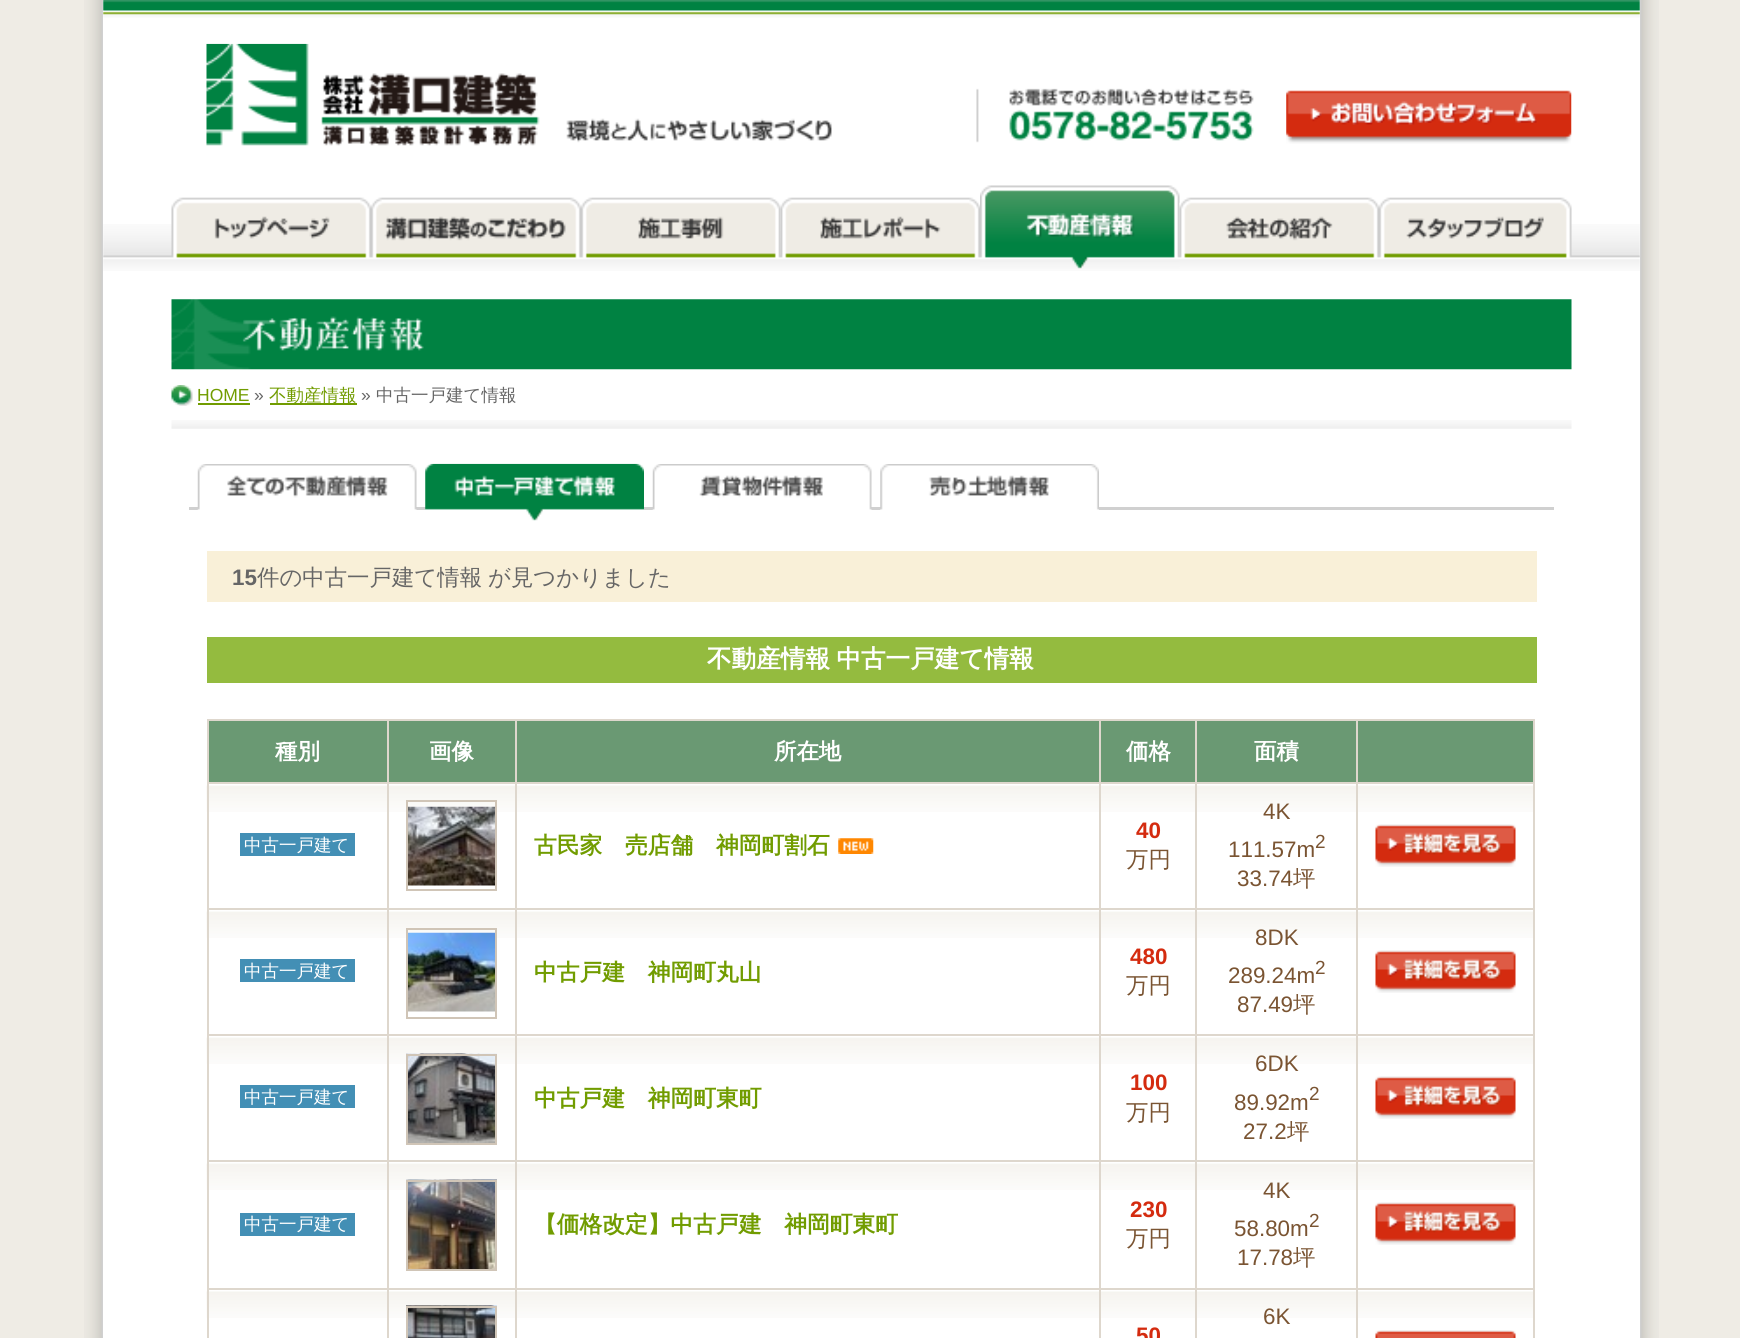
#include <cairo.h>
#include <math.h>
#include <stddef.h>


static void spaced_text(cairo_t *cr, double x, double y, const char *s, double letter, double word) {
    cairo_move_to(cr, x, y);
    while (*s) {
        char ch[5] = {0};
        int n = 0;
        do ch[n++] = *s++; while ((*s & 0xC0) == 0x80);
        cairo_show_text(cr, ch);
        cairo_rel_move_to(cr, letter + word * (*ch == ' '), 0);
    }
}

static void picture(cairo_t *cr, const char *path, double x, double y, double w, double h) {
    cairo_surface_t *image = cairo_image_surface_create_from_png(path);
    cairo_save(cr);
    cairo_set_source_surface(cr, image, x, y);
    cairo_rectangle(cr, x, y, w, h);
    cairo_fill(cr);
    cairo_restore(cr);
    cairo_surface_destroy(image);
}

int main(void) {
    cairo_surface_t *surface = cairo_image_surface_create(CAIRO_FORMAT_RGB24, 1740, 1338);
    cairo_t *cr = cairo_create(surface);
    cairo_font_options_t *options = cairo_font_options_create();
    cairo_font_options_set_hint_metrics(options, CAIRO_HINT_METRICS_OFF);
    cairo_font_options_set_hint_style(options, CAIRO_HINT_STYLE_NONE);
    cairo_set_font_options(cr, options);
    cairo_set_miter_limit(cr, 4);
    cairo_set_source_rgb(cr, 0.937, 0.925, 0.898);
    cairo_paint(cr);
    picture(cr, "img1.png", 84, 0, 1575, 1338);
    cairo_set_source_rgb(cr, 1, 1, 1);
    cairo_rectangle(cr, 103, 0, 1537, 1338);
    cairo_fill(cr);
    picture(cr, "img2.png", 103, 0, 1537, 18);
    picture(cr, "img3.png", 206, 43, 626, 103);
    picture(cr, "img4.png", 976, 88, 278, 55);
    picture(cr, "img5.png", 1286, 90, 286, 54);
    picture(cr, "img6.png", 103, 224, 1537, 47);
    picture(cr, "img7.png", 171, 197, 200, 61);
    picture(cr, "img8.png", 371, 197, 210, 61);
    picture(cr, "img9.png", 581, 197, 200, 61);
    picture(cr, "img10.png", 780, 197, 200, 61);
    picture(cr, "img11.png", 980, 185, 200, 84);
    picture(cr, "img12.png", 1179, 197, 200, 61);
    picture(cr, "img13.png", 1379, 197, 193, 61);
    picture(cr, "img14.png", 171, 299, 1401, 71);
    picture(cr, "img15.png", 171, 385, 22, 21);
    cairo_select_font_face(cr, "Liberation Sans", CAIRO_FONT_SLANT_NORMAL, CAIRO_FONT_WEIGHT_NORMAL);
    cairo_set_font_size(cr, 17.5);
    cairo_set_source_rgb(cr, 0.443, 0.612, 0);
    cairo_move_to(cr, 197, 401);
    cairo_show_text(cr, "HOME");
    cairo_rectangle(cr, 198, 403, 52, 2);
    cairo_fill(cr);
    cairo_set_source_rgb(cr, 0.4, 0.4, 0.4);
    cairo_move_to(cr, 254, 401);
    cairo_show_text(cr, "»");
    cairo_set_source_rgb(cr, 0.443, 0.612, 0);
    cairo_rectangle(cr, 270, 403, 87, 2);
    cairo_fill(cr);
    cairo_select_font_face(cr, "WenQuanYi Zen Hei Medium", CAIRO_FONT_SLANT_NORMAL, CAIRO_FONT_WEIGHT_NORMAL);
    cairo_move_to(cr, 269, 401);
    cairo_show_text(cr, "不動産情報");
    cairo_select_font_face(cr, "Liberation Sans", CAIRO_FONT_SLANT_NORMAL, CAIRO_FONT_WEIGHT_NORMAL);
    cairo_set_source_rgb(cr, 0.4, 0.4, 0.4);
    cairo_move_to(cr, 361, 401);
    cairo_show_text(cr, "»");
    cairo_select_font_face(cr, "WenQuanYi Zen Hei Medium", CAIRO_FONT_SLANT_NORMAL, CAIRO_FONT_WEIGHT_NORMAL);
    cairo_move_to(cr, 376, 401);
    cairo_show_text(cr, "中古一戸建て情報");
    picture(cr, "img16.png", 171, 420, 1401, 9);
    cairo_set_source_rgb(cr, 0.816, 0.816, 0.816);
    cairo_rectangle(cr, 189, 507, 1365, 3);
    cairo_fill(cr);
    picture(cr, "img17.png", 197, 464, 220, 46);
    picture(cr, "img18.png", 425, 463, 219, 58);
    picture(cr, "img19.png", 652, 464, 220, 46);
    picture(cr, "img20.png", 880, 464, 219, 46);
    cairo_set_source_rgb(cr, 0.976, 0.941, 0.847);
    cairo_rectangle(cr, 207, 551, 1330, 51);
    cairo_fill(cr);
    cairo_select_font_face(cr, "Liberation Sans", CAIRO_FONT_SLANT_NORMAL, CAIRO_FONT_WEIGHT_BOLD);
    cairo_set_font_size(cr, 22.4);
    cairo_set_source_rgb(cr, 0.4, 0.4, 0.4);
    cairo_move_to(cr, 232, 585);
    cairo_show_text(cr, "15");
    cairo_select_font_face(cr, "WenQuanYi Zen Hei Medium", CAIRO_FONT_SLANT_NORMAL, CAIRO_FONT_WEIGHT_NORMAL);
    cairo_move_to(cr, 257, 585);
    cairo_show_text(cr, "件の中古一戸建て情報");
    cairo_move_to(cr, 488, 585);
    cairo_show_text(cr, "が見つかりました");
    cairo_set_source_rgb(cr, 0.58, 0.733, 0.247);
    cairo_rectangle(cr, 207, 637, 1330, 46);
    cairo_fill(cr);
    cairo_select_font_face(cr, "WenQuanYi Zen Hei", CAIRO_FONT_SLANT_NORMAL, CAIRO_FONT_WEIGHT_BOLD);
    cairo_set_font_size(cr, 24.6);
    cairo_set_source_rgb(cr, 1, 1, 1);
    spaced_text(cr, 707, 667, "不動産情報 中古一戸建て情報", 0, -1);
    cairo_set_source_rgb(cr, 0.871, 0.843, 0.804);
    cairo_rectangle(cr, 207, 719, 1328, 2);
    cairo_fill(cr);
    cairo_rectangle(cr, 1533, 719, 2, 619);
    cairo_fill(cr);
    cairo_set_source_rgb(cr, 0.416, 0.6, 0.451);
    cairo_rectangle(cr, 209, 721, 178, 61);
    cairo_fill(cr);
    cairo_set_source_rgb(cr, 0.871, 0.843, 0.804);
    cairo_rectangle(cr, 1356, 1288, 2, 50);
    cairo_fill(cr);
    cairo_rectangle(cr, 1356, 1288, 179, 2);
    cairo_fill(cr);
    cairo_rectangle(cr, 1356, 1160, 2, 130);
    cairo_fill(cr);
    cairo_rectangle(cr, 1356, 1160, 179, 2);
    cairo_fill(cr);
    cairo_rectangle(cr, 1356, 1034, 2, 128);
    cairo_fill(cr);
    cairo_rectangle(cr, 1356, 1034, 179, 2);
    cairo_fill(cr);
    cairo_rectangle(cr, 1356, 908, 2, 128);
    cairo_fill(cr);
    cairo_rectangle(cr, 1356, 908, 179, 2);
    cairo_fill(cr);
    cairo_rectangle(cr, 1356, 782, 2, 128);
    cairo_fill(cr);
    cairo_rectangle(cr, 1356, 782, 179, 2);
    cairo_fill(cr);
    cairo_rectangle(cr, 1356, 719, 2, 65);
    cairo_fill(cr);
    cairo_rectangle(cr, 1195, 1288, 2, 50);
    cairo_fill(cr);
    cairo_rectangle(cr, 1195, 1288, 163, 2);
    cairo_fill(cr);
    cairo_rectangle(cr, 1195, 1160, 2, 130);
    cairo_fill(cr);
    cairo_rectangle(cr, 1195, 1160, 163, 2);
    cairo_fill(cr);
    cairo_rectangle(cr, 1195, 1034, 2, 128);
    cairo_fill(cr);
    cairo_rectangle(cr, 1195, 1034, 163, 2);
    cairo_fill(cr);
    cairo_rectangle(cr, 1195, 908, 2, 128);
    cairo_fill(cr);
    cairo_rectangle(cr, 1195, 908, 163, 2);
    cairo_fill(cr);
    cairo_rectangle(cr, 1195, 782, 2, 128);
    cairo_fill(cr);
    cairo_rectangle(cr, 1195, 782, 163, 2);
    cairo_fill(cr);
    cairo_rectangle(cr, 1195, 719, 2, 65);
    cairo_fill(cr);
    cairo_rectangle(cr, 1099, 1288, 2, 50);
    cairo_fill(cr);
    cairo_rectangle(cr, 1099, 1288, 98, 2);
    cairo_fill(cr);
    cairo_rectangle(cr, 1099, 1160, 2, 130);
    cairo_fill(cr);
    cairo_rectangle(cr, 1099, 1160, 98, 2);
    cairo_fill(cr);
    cairo_rectangle(cr, 1099, 1034, 2, 128);
    cairo_fill(cr);
    cairo_rectangle(cr, 1099, 1034, 98, 2);
    cairo_fill(cr);
    cairo_rectangle(cr, 1099, 908, 2, 128);
    cairo_fill(cr);
    cairo_rectangle(cr, 1099, 908, 98, 2);
    cairo_fill(cr);
    cairo_rectangle(cr, 1099, 782, 2, 128);
    cairo_fill(cr);
    cairo_rectangle(cr, 1099, 782, 98, 2);
    cairo_fill(cr);
    cairo_rectangle(cr, 1099, 719, 2, 65);
    cairo_fill(cr);
    cairo_rectangle(cr, 515, 1288, 2, 50);
    cairo_fill(cr);
    cairo_rectangle(cr, 515, 1288, 586, 2);
    cairo_fill(cr);
    cairo_rectangle(cr, 515, 1160, 2, 130);
    cairo_fill(cr);
    cairo_rectangle(cr, 515, 1160, 586, 2);
    cairo_fill(cr);
    cairo_rectangle(cr, 515, 1034, 2, 128);
    cairo_fill(cr);
    cairo_rectangle(cr, 515, 1034, 586, 2);
    cairo_fill(cr);
    cairo_rectangle(cr, 515, 908, 2, 128);
    cairo_fill(cr);
    cairo_rectangle(cr, 515, 908, 586, 2);
    cairo_fill(cr);
    cairo_rectangle(cr, 515, 782, 2, 128);
    cairo_fill(cr);
    cairo_rectangle(cr, 515, 782, 586, 2);
    cairo_fill(cr);
    cairo_rectangle(cr, 515, 719, 2, 65);
    cairo_fill(cr);
    cairo_rectangle(cr, 387, 1288, 2, 50);
    cairo_fill(cr);
    cairo_rectangle(cr, 387, 1288, 129, 2);
    cairo_fill(cr);
    cairo_rectangle(cr, 387, 1160, 2, 130);
    cairo_fill(cr);
    cairo_rectangle(cr, 387, 1160, 129, 2);
    cairo_fill(cr);
    cairo_rectangle(cr, 387, 1034, 2, 128);
    cairo_fill(cr);
    cairo_rectangle(cr, 387, 1034, 129, 2);
    cairo_fill(cr);
    cairo_rectangle(cr, 387, 908, 2, 128);
    cairo_fill(cr);
    cairo_rectangle(cr, 387, 908, 129, 2);
    cairo_fill(cr);
    cairo_rectangle(cr, 387, 782, 2, 128);
    cairo_fill(cr);
    cairo_rectangle(cr, 387, 782, 129, 2);
    cairo_fill(cr);
    cairo_rectangle(cr, 387, 719, 2, 65);
    cairo_fill(cr);
    picture(cr, "img21.png", 206, 785, 181, 27);
    picture(cr, "img21.png", 206, 911, 181, 27);
    picture(cr, "img21.png", 206, 1037, 181, 27);
    picture(cr, "img21.png", 206, 1163, 181, 27);
    picture(cr, "img33.png", 206, 1291, 181, 27);
    cairo_rectangle(cr, 207, 1288, 2, 50);
    cairo_fill(cr);
    cairo_rectangle(cr, 207, 1288, 182, 2);
    cairo_fill(cr);
    cairo_rectangle(cr, 207, 1160, 2, 130);
    cairo_fill(cr);
    cairo_rectangle(cr, 207, 1160, 182, 2);
    cairo_fill(cr);
    cairo_rectangle(cr, 207, 1034, 2, 128);
    cairo_fill(cr);
    cairo_rectangle(cr, 207, 1034, 182, 2);
    cairo_fill(cr);
    cairo_rectangle(cr, 207, 908, 2, 128);
    cairo_fill(cr);
    cairo_rectangle(cr, 207, 908, 182, 2);
    cairo_fill(cr);
    cairo_rectangle(cr, 207, 782, 2, 128);
    cairo_fill(cr);
    cairo_rectangle(cr, 207, 782, 182, 2);
    cairo_fill(cr);
    cairo_rectangle(cr, 207, 719, 2, 65);
    cairo_fill(cr);
    cairo_set_font_size(cr, 22.4);
    cairo_set_source_rgb(cr, 1, 1, 1);
    cairo_move_to(cr, 275, 759);
    cairo_show_text(cr, "種別");
    cairo_set_source_rgb(cr, 0.416, 0.6, 0.451);
    cairo_rectangle(cr, 389, 721, 126, 61);
    cairo_fill(cr);
    cairo_set_source_rgb(cr, 1, 1, 1);
    cairo_move_to(cr, 429, 759);
    cairo_show_text(cr, "画像");
    cairo_set_source_rgb(cr, 0.416, 0.6, 0.451);
    cairo_rectangle(cr, 517, 721, 582, 61);
    cairo_fill(cr);
    cairo_set_source_rgb(cr, 1, 1, 1);
    cairo_move_to(cr, 774, 759);
    cairo_show_text(cr, "所在地");
    cairo_set_source_rgb(cr, 0.416, 0.6, 0.451);
    cairo_rectangle(cr, 1101, 721, 94, 61);
    cairo_fill(cr);
    cairo_set_source_rgb(cr, 1, 1, 1);
    cairo_move_to(cr, 1126, 759);
    cairo_show_text(cr, "価格");
    cairo_set_source_rgb(cr, 0.416, 0.6, 0.451);
    cairo_rectangle(cr, 1197, 721, 159, 61);
    cairo_fill(cr);
    cairo_set_source_rgb(cr, 1, 1, 1);
    cairo_move_to(cr, 1254, 759);
    cairo_show_text(cr, "面積");
    cairo_set_source_rgb(cr, 0.416, 0.6, 0.451);
    cairo_rectangle(cr, 1358, 721, 175, 61);
    cairo_fill(cr);
    cairo_set_source_rgb(cr, 0.263, 0.561, 0.71);
    cairo_rectangle(cr, 240, 833, 115, 23);
    cairo_fill(cr);
    cairo_select_font_face(cr, "WenQuanYi Zen Hei Medium", CAIRO_FONT_SLANT_NORMAL, CAIRO_FONT_WEIGHT_NORMAL);
    cairo_set_font_size(cr, 17.5);
    cairo_set_source_rgb(cr, 1, 1, 1);
    cairo_move_to(cr, 244, 851);
    cairo_show_text(cr, "中古一戸建て");
    picture(cr, "img22.png", 389, 785, 126, 27);
    picture(cr, "img23.png", 408, 806, 87, 80);
    cairo_rectangle(cr, 407, 801, 89, 89);
    cairo_set_source_rgb(cr, 0.816, 0.773, 0.718);
    cairo_stroke(cr);
    picture(cr, "img24.png", 517, 785, 582, 27);
    cairo_select_font_face(cr, "WenQuanYi Zen Hei", CAIRO_FONT_SLANT_NORMAL, CAIRO_FONT_WEIGHT_BOLD);
    cairo_set_font_size(cr, 22.75);
    cairo_set_source_rgb(cr, 0.443, 0.612, 0);
    cairo_move_to(cr, 534, 853);
    cairo_show_text(cr, "古民家　売店舗　神岡町割石");
    picture(cr, "img25.png", 838, 838, 36, 16);
    picture(cr, "img26.png", 1101, 785, 94, 27);
    cairo_select_font_face(cr, "Liberation Sans", CAIRO_FONT_SLANT_NORMAL, CAIRO_FONT_WEIGHT_BOLD);
    cairo_set_font_size(cr, 22.4);
    cairo_set_source_rgb(cr, 0.831, 0.169, 0.059);
    cairo_move_to(cr, 1136, 838);
    cairo_show_text(cr, "40");
    cairo_select_font_face(cr, "WenQuanYi Zen Hei Medium", CAIRO_FONT_SLANT_NORMAL, CAIRO_FONT_WEIGHT_NORMAL);
    cairo_set_source_rgb(cr, 0.478, 0.329, 0.196);
    cairo_move_to(cr, 1126, 867);
    cairo_show_text(cr, "万円");
    picture(cr, "img27.png", 1197, 785, 159, 27);
    cairo_select_font_face(cr, "Liberation Sans", CAIRO_FONT_SLANT_NORMAL, CAIRO_FONT_WEIGHT_NORMAL);
    cairo_move_to(cr, 1263, 819);
    cairo_show_text(cr, "4K");
    cairo_move_to(cr, 1228, 857);
    cairo_show_text(cr, "111.57m");
    cairo_set_font_size(cr, 19);
    cairo_move_to(cr, 1315, 848);
    cairo_show_text(cr, "2");
    cairo_set_font_size(cr, 22.4);
    cairo_move_to(cr, 1237, 886);
    cairo_show_text(cr, "33.74");
    cairo_select_font_face(cr, "WenQuanYi Zen Hei Medium", CAIRO_FONT_SLANT_NORMAL, CAIRO_FONT_WEIGHT_NORMAL);
    cairo_move_to(cr, 1293, 886);
    cairo_show_text(cr, "坪");
    picture(cr, "img28.png", 1358, 785, 175, 27);
    picture(cr, "img29.png", 1375, 824, 141, 43);
    cairo_set_source_rgb(cr, 0.263, 0.561, 0.71);
    cairo_rectangle(cr, 240, 959, 115, 23);
    cairo_fill(cr);
    cairo_set_font_size(cr, 17.5);
    cairo_set_source_rgb(cr, 1, 1, 1);
    cairo_move_to(cr, 244, 977);
    cairo_show_text(cr, "中古一戸建て");
    picture(cr, "img22.png", 389, 911, 126, 27);
    picture(cr, "img30.png", 408, 932, 87, 80);
    cairo_rectangle(cr, 407, 929, 89, 89);
    cairo_set_source_rgb(cr, 0.816, 0.773, 0.718);
    cairo_stroke(cr);
    picture(cr, "img24.png", 517, 911, 582, 27);
    cairo_select_font_face(cr, "WenQuanYi Zen Hei", CAIRO_FONT_SLANT_NORMAL, CAIRO_FONT_WEIGHT_BOLD);
    cairo_set_font_size(cr, 22.75);
    cairo_set_source_rgb(cr, 0.443, 0.612, 0);
    cairo_move_to(cr, 534, 980);
    cairo_show_text(cr, "中古戸建　神岡町丸山");
    picture(cr, "img26.png", 1101, 911, 94, 27);
    cairo_select_font_face(cr, "Liberation Sans", CAIRO_FONT_SLANT_NORMAL, CAIRO_FONT_WEIGHT_BOLD);
    cairo_set_font_size(cr, 22.4);
    cairo_set_source_rgb(cr, 0.831, 0.169, 0.059);
    cairo_move_to(cr, 1130, 964);
    cairo_show_text(cr, "480");
    cairo_select_font_face(cr, "WenQuanYi Zen Hei Medium", CAIRO_FONT_SLANT_NORMAL, CAIRO_FONT_WEIGHT_NORMAL);
    cairo_set_source_rgb(cr, 0.478, 0.329, 0.196);
    cairo_move_to(cr, 1126, 993);
    cairo_show_text(cr, "万円");
    picture(cr, "img27.png", 1197, 911, 159, 27);
    cairo_select_font_face(cr, "Liberation Sans", CAIRO_FONT_SLANT_NORMAL, CAIRO_FONT_WEIGHT_NORMAL);
    cairo_move_to(cr, 1255, 945);
    cairo_show_text(cr, "8DK");
    cairo_move_to(cr, 1228, 983);
    cairo_show_text(cr, "289.24m");
    cairo_set_font_size(cr, 19);
    cairo_move_to(cr, 1315, 974);
    cairo_show_text(cr, "2");
    cairo_set_font_size(cr, 22.4);
    cairo_move_to(cr, 1237, 1012);
    cairo_show_text(cr, "87.49");
    cairo_select_font_face(cr, "WenQuanYi Zen Hei Medium", CAIRO_FONT_SLANT_NORMAL, CAIRO_FONT_WEIGHT_NORMAL);
    cairo_move_to(cr, 1293, 1012);
    cairo_show_text(cr, "坪");
    picture(cr, "img28.png", 1358, 911, 175, 27);
    picture(cr, "img29.png", 1375, 950, 141, 43);
    cairo_set_source_rgb(cr, 0.263, 0.561, 0.71);
    cairo_rectangle(cr, 240, 1085, 115, 23);
    cairo_fill(cr);
    cairo_set_font_size(cr, 17.5);
    cairo_set_source_rgb(cr, 1, 1, 1);
    cairo_move_to(cr, 244, 1103);
    cairo_show_text(cr, "中古一戸建て");
    picture(cr, "img22.png", 389, 1037, 126, 27);
    picture(cr, "img31.png", 406, 1053, 91, 90);
    cairo_rectangle(cr, 407, 1055, 89, 89);
    cairo_set_source_rgb(cr, 0.816, 0.773, 0.718);
    cairo_stroke(cr);
    picture(cr, "img24.png", 517, 1037, 582, 27);
    cairo_select_font_face(cr, "WenQuanYi Zen Hei", CAIRO_FONT_SLANT_NORMAL, CAIRO_FONT_WEIGHT_BOLD);
    cairo_set_font_size(cr, 22.75);
    cairo_set_source_rgb(cr, 0.443, 0.612, 0);
    cairo_move_to(cr, 534, 1106);
    cairo_show_text(cr, "中古戸建　神岡町東町");
    picture(cr, "img26.png", 1101, 1037, 94, 27);
    cairo_select_font_face(cr, "Liberation Sans", CAIRO_FONT_SLANT_NORMAL, CAIRO_FONT_WEIGHT_BOLD);
    cairo_set_font_size(cr, 22.4);
    cairo_set_source_rgb(cr, 0.831, 0.169, 0.059);
    cairo_move_to(cr, 1130, 1090);
    cairo_show_text(cr, "100");
    cairo_select_font_face(cr, "WenQuanYi Zen Hei Medium", CAIRO_FONT_SLANT_NORMAL, CAIRO_FONT_WEIGHT_NORMAL);
    cairo_set_source_rgb(cr, 0.478, 0.329, 0.196);
    cairo_move_to(cr, 1126, 1120);
    cairo_show_text(cr, "万円");
    picture(cr, "img27.png", 1197, 1037, 159, 27);
    cairo_select_font_face(cr, "Liberation Sans", CAIRO_FONT_SLANT_NORMAL, CAIRO_FONT_WEIGHT_NORMAL);
    cairo_move_to(cr, 1255, 1071);
    cairo_show_text(cr, "6DK");
    cairo_move_to(cr, 1234, 1110);
    cairo_show_text(cr, "89.92m");
    cairo_set_font_size(cr, 19);
    cairo_move_to(cr, 1309, 1100);
    cairo_show_text(cr, "2");
    cairo_set_font_size(cr, 22.4);
    cairo_move_to(cr, 1243, 1139);
    cairo_show_text(cr, "27.2");
    cairo_select_font_face(cr, "WenQuanYi Zen Hei Medium", CAIRO_FONT_SLANT_NORMAL, CAIRO_FONT_WEIGHT_NORMAL);
    cairo_move_to(cr, 1287, 1139);
    cairo_show_text(cr, "坪");
    picture(cr, "img28.png", 1358, 1037, 175, 27);
    picture(cr, "img29.png", 1375, 1076, 141, 43);
    cairo_set_source_rgb(cr, 0.263, 0.561, 0.71);
    cairo_rectangle(cr, 240, 1213, 115, 23);
    cairo_fill(cr);
    cairo_set_font_size(cr, 17.5);
    cairo_set_source_rgb(cr, 1, 1, 1);
    cairo_move_to(cr, 244, 1230);
    cairo_show_text(cr, "中古一戸建て");
    picture(cr, "img22.png", 389, 1163, 126, 27);
    picture(cr, "img32.png", 406, 1179, 91, 90);
    cairo_rectangle(cr, 407, 1181, 89, 89);
    cairo_set_source_rgb(cr, 0.816, 0.773, 0.718);
    cairo_stroke(cr);
    picture(cr, "img24.png", 517, 1163, 582, 27);
    cairo_select_font_face(cr, "WenQuanYi Zen Hei", CAIRO_FONT_SLANT_NORMAL, CAIRO_FONT_WEIGHT_BOLD);
    cairo_set_font_size(cr, 22.75);
    cairo_set_source_rgb(cr, 0.443, 0.612, 0);
    cairo_move_to(cr, 534, 1232);
    cairo_show_text(cr, "【価格改定】中古戸建　神岡町東町");
    picture(cr, "img26.png", 1101, 1163, 94, 27);
    cairo_select_font_face(cr, "Liberation Sans", CAIRO_FONT_SLANT_NORMAL, CAIRO_FONT_WEIGHT_BOLD);
    cairo_set_font_size(cr, 22.4);
    cairo_set_source_rgb(cr, 0.831, 0.169, 0.059);
    cairo_move_to(cr, 1130, 1217);
    cairo_show_text(cr, "230");
    cairo_select_font_face(cr, "WenQuanYi Zen Hei Medium", CAIRO_FONT_SLANT_NORMAL, CAIRO_FONT_WEIGHT_NORMAL);
    cairo_set_source_rgb(cr, 0.478, 0.329, 0.196);
    cairo_move_to(cr, 1126, 1246);
    cairo_show_text(cr, "万円");
    picture(cr, "img27.png", 1197, 1163, 159, 27);
    cairo_select_font_face(cr, "Liberation Sans", CAIRO_FONT_SLANT_NORMAL, CAIRO_FONT_WEIGHT_NORMAL);
    cairo_move_to(cr, 1263, 1198);
    cairo_show_text(cr, "4K");
    cairo_move_to(cr, 1234, 1236);
    cairo_show_text(cr, "58.80m");
    cairo_set_font_size(cr, 19);
    cairo_move_to(cr, 1309, 1227);
    cairo_show_text(cr, "2");
    cairo_set_font_size(cr, 22.4);
    cairo_move_to(cr, 1237, 1265);
    cairo_show_text(cr, "17.78");
    cairo_select_font_face(cr, "WenQuanYi Zen Hei Medium", CAIRO_FONT_SLANT_NORMAL, CAIRO_FONT_WEIGHT_NORMAL);
    cairo_move_to(cr, 1293, 1265);
    cairo_show_text(cr, "坪");
    picture(cr, "img28.png", 1358, 1163, 175, 27);
    picture(cr, "img29.png", 1375, 1202, 141, 43);
    picture(cr, "img34.png", 389, 1291, 126, 27);
    picture(cr, "img35.png", 406, 1305, 91, 33);
    cairo_rectangle(cr, 407, 1307, 89, 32);
    cairo_set_source_rgb(cr, 0.816, 0.773, 0.718);
    cairo_stroke(cr);
    picture(cr, "img36.png", 517, 1291, 582, 27);
    picture(cr, "img37.png", 1197, 1291, 159, 27);
    cairo_select_font_face(cr, "Liberation Sans", CAIRO_FONT_SLANT_NORMAL, CAIRO_FONT_WEIGHT_NORMAL);
    cairo_set_source_rgb(cr, 0.478, 0.329, 0.196);
    cairo_move_to(cr, 1263, 1324);
    cairo_show_text(cr, "6K");
    picture(cr, "img38.png", 1358, 1291, 175, 27);
    picture(cr, "img39.png", 1375, 1330, 141, 8);
    picture(cr, "img40.png", 1101, 1291, 94, 27);
    cairo_select_font_face(cr, "Liberation Sans", CAIRO_FONT_SLANT_NORMAL, CAIRO_FONT_WEIGHT_BOLD);
    cairo_set_source_rgb(cr, 0.831, 0.169, 0.059);
    cairo_move_to(cr, 1136, 1343);
    cairo_show_text(cr, "50");
    cairo_surface_write_to_png(surface, "page.png");
    cairo_font_options_destroy(options);
    cairo_destroy(cr);
    cairo_surface_destroy(surface);
    return 0;
}
